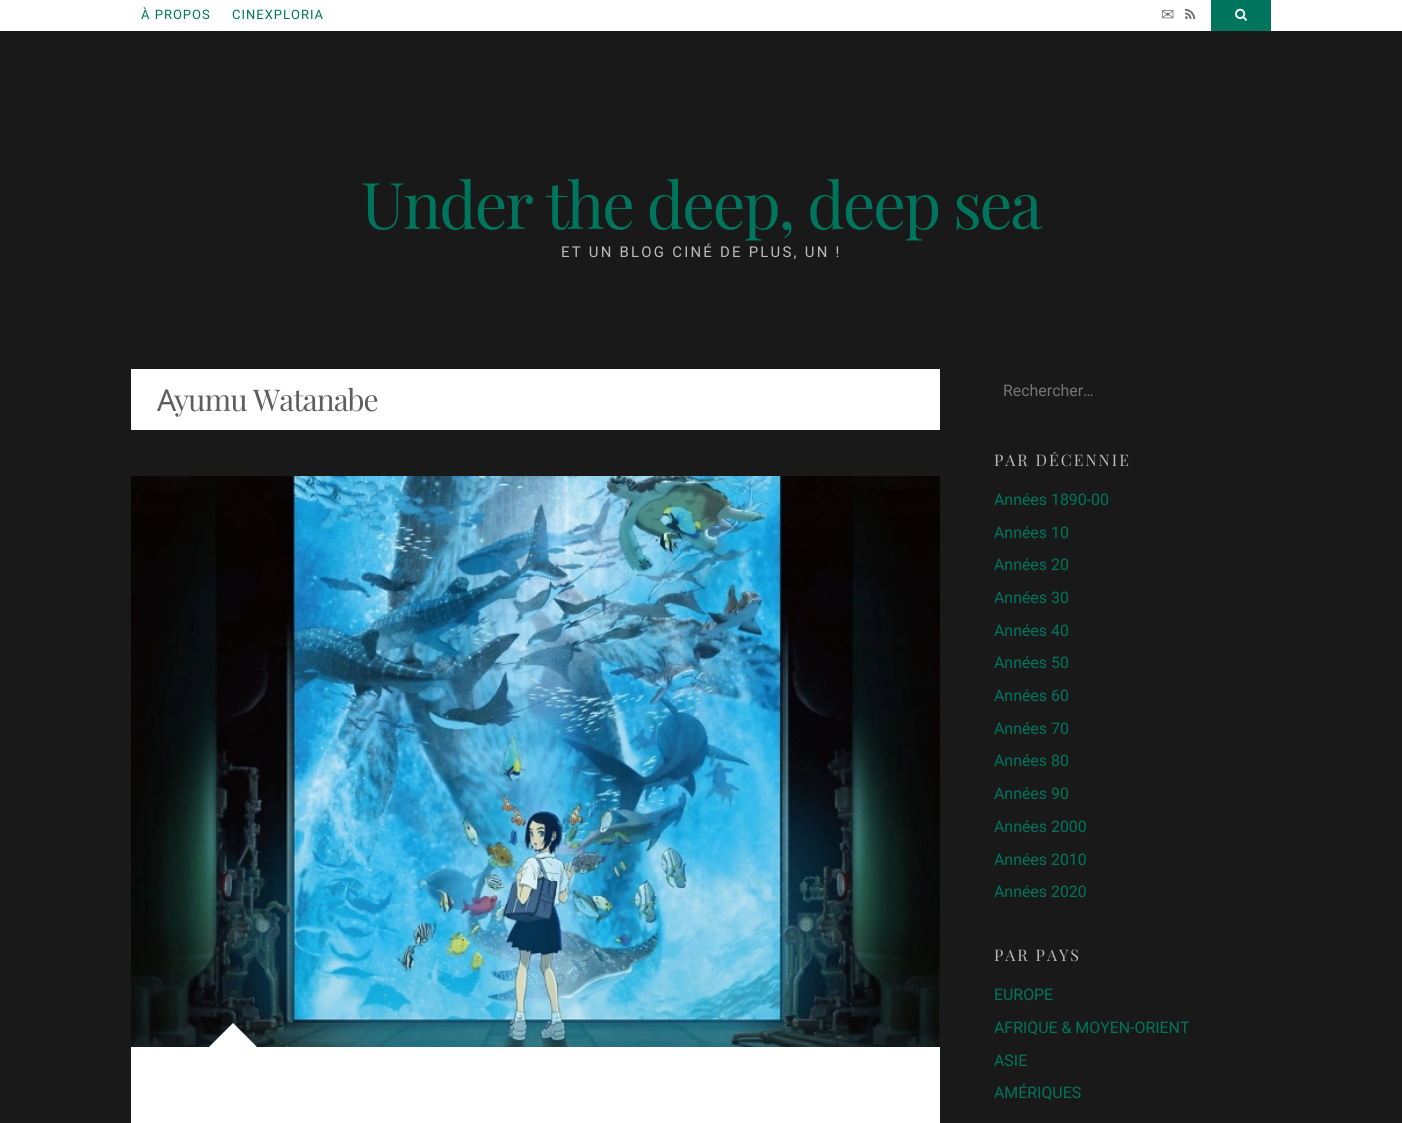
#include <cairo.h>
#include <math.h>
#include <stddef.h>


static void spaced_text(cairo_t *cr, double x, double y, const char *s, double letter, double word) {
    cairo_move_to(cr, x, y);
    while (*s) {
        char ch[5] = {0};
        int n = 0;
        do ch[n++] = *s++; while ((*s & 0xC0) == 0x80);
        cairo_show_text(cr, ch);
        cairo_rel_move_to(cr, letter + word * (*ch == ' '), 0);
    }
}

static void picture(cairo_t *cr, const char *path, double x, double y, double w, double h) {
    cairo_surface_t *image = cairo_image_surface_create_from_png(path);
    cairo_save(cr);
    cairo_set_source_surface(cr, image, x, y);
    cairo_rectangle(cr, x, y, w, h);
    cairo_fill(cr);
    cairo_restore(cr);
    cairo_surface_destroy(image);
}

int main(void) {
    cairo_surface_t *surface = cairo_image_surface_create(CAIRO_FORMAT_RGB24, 1402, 1123);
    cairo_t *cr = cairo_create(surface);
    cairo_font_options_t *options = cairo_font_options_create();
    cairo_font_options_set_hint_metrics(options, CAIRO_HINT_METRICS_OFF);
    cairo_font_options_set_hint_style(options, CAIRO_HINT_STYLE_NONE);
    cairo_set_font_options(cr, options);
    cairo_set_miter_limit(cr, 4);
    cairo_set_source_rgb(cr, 0.098, 0.098, 0.098);
    cairo_paint(cr);
    cairo_set_source_rgb(cr, 1, 1, 1);
    cairo_rectangle(cr, 0, 0, 1402, 31);
    cairo_fill(cr);
    cairo_select_font_face(cr, "Roboto", CAIRO_FONT_SLANT_NORMAL, CAIRO_FONT_WEIGHT_NORMAL);
    cairo_set_font_size(cr, 13);
    cairo_set_source_rgb(cr, 0, 0.459, 0.365);
    spaced_text(cr, 141, 19, "À PROPOS", 1, 0);
    spaced_text(cr, 232, 19, "CINEXPLORIA", 1, 0);
    cairo_select_font_face(cr, "DejaVu Sans", CAIRO_FONT_SLANT_NORMAL, CAIRO_FONT_WEIGHT_NORMAL);
    cairo_set_font_size(cr, 16);
    cairo_set_source_rgb(cr, 0.459, 0.459, 0.459);
    cairo_move_to(cr, 1161, 20);
    cairo_show_text(cr, "✉");
    picture(cr, "img1.png", 1185, 8, 11, 11);
    cairo_set_source_rgb(cr, 0, 0.459, 0.365);
    cairo_rectangle(cr, 1211, 0, 60, 31);
    cairo_fill(cr);
    picture(cr, "img2.png", 1235, 8, 12, 13);
    cairo_select_font_face(cr, "Playfair Display", CAIRO_FONT_SLANT_NORMAL, CAIRO_FONT_WEIGHT_NORMAL);
    cairo_set_font_size(cr, 64.5);
    spaced_text(cr, 361, 229, "Under the deep, deep sea", -2.1, 0);
    cairo_select_font_face(cr, "Roboto", CAIRO_FONT_SLANT_NORMAL, CAIRO_FONT_WEIGHT_NORMAL);
    cairo_set_font_size(cr, 14.9);
    cairo_set_source_rgb(cr, 0.737, 0.737, 0.737);
    spaced_text(cr, 561, 257, "ET UN BLOG CINÉ DE PLUS, UN !", 2.25, 0);
    cairo_set_source_rgb(cr, 1, 1, 1);
    cairo_rectangle(cr, 131, 369, 809, 61);
    cairo_fill(cr);
    cairo_select_font_face(cr, "Noto Sans", CAIRO_FONT_SLANT_NORMAL, CAIRO_FONT_WEIGHT_NORMAL);
    cairo_set_font_size(cr, 30);
    cairo_set_source_rgb(cr, 0.369, 0.369, 0.369);
    spaced_text(cr, 157, 411, "A", -1, 0);
    cairo_select_font_face(cr, "Playfair Display", CAIRO_FONT_SLANT_NORMAL, CAIRO_FONT_WEIGHT_NORMAL);
    spaced_text(cr, 174, 411, "yumu Watanabe", -1, 0);
    cairo_set_source_rgb(cr, 1, 1, 1);
    cairo_rectangle(cr, 131, 1047, 809, 76);
    cairo_fill(cr);
    picture(cr, "img3.png", 131, 476, 809, 571);
    cairo_save(cr);
    cairo_rectangle(cr, 131, 476, 809, 571);
    cairo_clip(cr);
    cairo_new_path(cr);
    cairo_move_to(cr, 233, 1023);
    cairo_line_to(cr, 257, 1047);
    cairo_line_to(cr, 233, 1071);
    cairo_line_to(cr, 209, 1047);
    cairo_close_path(cr);
    cairo_fill(cr);
    cairo_restore(cr);
    cairo_select_font_face(cr, "Roboto", CAIRO_FONT_SLANT_NORMAL, CAIRO_FONT_WEIGHT_NORMAL);
    cairo_set_font_size(cr, 15.9);
    cairo_set_source_rgb(cr, 0.459, 0.459, 0.459);
    cairo_move_to(cr, 1003, 396);
    cairo_show_text(cr, "Rechercher…");
    cairo_save(cr);
    cairo_rectangle(cr, 994, 452, 277, 16);
    cairo_clip(cr);
    cairo_select_font_face(cr, "Playfair Display", CAIRO_FONT_SLANT_NORMAL, CAIRO_FONT_WEIGHT_NORMAL);
    cairo_set_source_rgb(cr, 0.737, 0.737, 0.737);
    spaced_text(cr, 994, 466, "PAR DÉCENNIE", 2, 0);
    cairo_restore(cr);
    cairo_set_source_rgb(cr, 0, 0.459, 0.365);
    cairo_move_to(cr, 994, 505);
    cairo_show_text(cr, "Années 1890-00");
    cairo_move_to(cr, 994, 538);
    cairo_show_text(cr, "Années 10");
    cairo_move_to(cr, 994, 570);
    cairo_show_text(cr, "Années 20");
    cairo_move_to(cr, 994, 603);
    cairo_show_text(cr, "Années 30");
    cairo_move_to(cr, 994, 636);
    cairo_show_text(cr, "Années 40");
    cairo_move_to(cr, 994, 668);
    cairo_show_text(cr, "Années 50");
    cairo_move_to(cr, 994, 701);
    cairo_show_text(cr, "Années 60");
    cairo_move_to(cr, 994, 734);
    cairo_show_text(cr, "Années 70");
    cairo_move_to(cr, 994, 766);
    cairo_show_text(cr, "Années 80");
    cairo_move_to(cr, 994, 799);
    cairo_show_text(cr, "Années 90");
    cairo_move_to(cr, 994, 832);
    cairo_show_text(cr, "Années 2000");
    cairo_move_to(cr, 994, 865);
    cairo_show_text(cr, "Années 2010");
    cairo_move_to(cr, 994, 897);
    cairo_show_text(cr, "Années 2020");
    cairo_select_font_face(cr, "Playfair Display", CAIRO_FONT_SLANT_NORMAL, CAIRO_FONT_WEIGHT_NORMAL);
    cairo_set_source_rgb(cr, 0.737, 0.737, 0.737);
    spaced_text(cr, 994, 961, "PAR PAYS", 2, 0);
    cairo_select_font_face(cr, "Roboto", CAIRO_FONT_SLANT_NORMAL, CAIRO_FONT_WEIGHT_NORMAL);
    cairo_set_source_rgb(cr, 0, 0.459, 0.365);
    cairo_move_to(cr, 994, 1000);
    cairo_show_text(cr, "EUROPE");
    cairo_move_to(cr, 994, 1033);
    cairo_show_text(cr, "AFRIQUE & MOYEN-ORIENT");
    cairo_move_to(cr, 994, 1066);
    cairo_show_text(cr, "ASIE");
    cairo_move_to(cr, 994, 1098);
    cairo_show_text(cr, "AMÉRIQUES");
    cairo_surface_write_to_png(surface, "page.png");
    cairo_font_options_destroy(options);
    cairo_destroy(cr);
    cairo_surface_destroy(surface);
    return 0;
}
